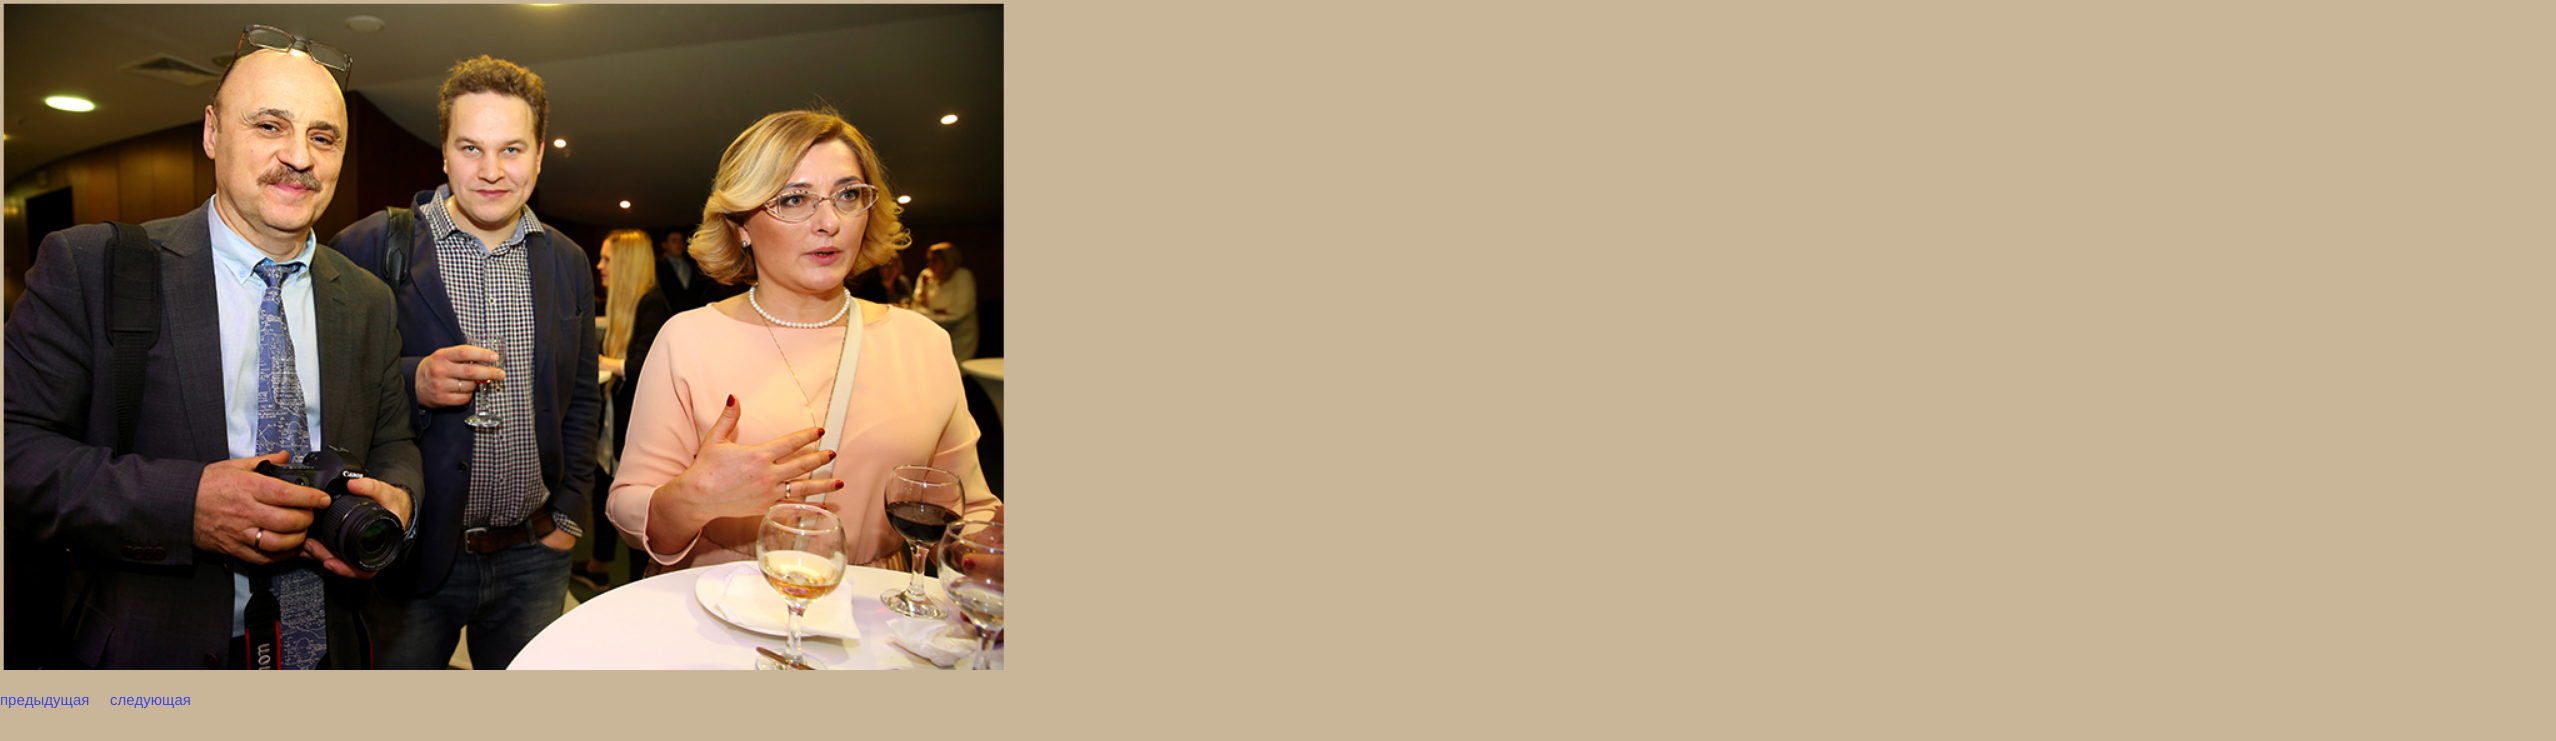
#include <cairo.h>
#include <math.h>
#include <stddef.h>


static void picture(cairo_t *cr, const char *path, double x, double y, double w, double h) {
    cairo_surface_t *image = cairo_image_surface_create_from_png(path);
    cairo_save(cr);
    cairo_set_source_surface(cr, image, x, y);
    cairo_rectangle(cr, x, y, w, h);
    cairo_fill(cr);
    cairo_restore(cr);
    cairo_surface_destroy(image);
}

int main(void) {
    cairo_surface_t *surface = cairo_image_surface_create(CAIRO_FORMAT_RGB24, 2556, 741);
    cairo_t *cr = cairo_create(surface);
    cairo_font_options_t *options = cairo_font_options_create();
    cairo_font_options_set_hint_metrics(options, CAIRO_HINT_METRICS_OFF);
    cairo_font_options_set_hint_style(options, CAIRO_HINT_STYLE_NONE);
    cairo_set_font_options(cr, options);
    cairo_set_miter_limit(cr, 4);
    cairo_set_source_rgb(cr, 0.788, 0.714, 0.596);
    cairo_paint(cr);
    picture(cr, "img1.png", 3, 3, 1001, 667);
    cairo_select_font_face(cr, "Liberation Sans", CAIRO_FONT_SLANT_NORMAL, CAIRO_FONT_WEIGHT_NORMAL);
    cairo_set_font_size(cr, 15);
    cairo_set_source_rgb(cr, 0.235, 0.278, 0.863);
    cairo_move_to(cr, 0, 705);
    cairo_show_text(cr, "предыдущая");
    cairo_move_to(cr, 110, 705);
    cairo_show_text(cr, "следующая");
    cairo_surface_write_to_png(surface, "page.png");
    cairo_font_options_destroy(options);
    cairo_destroy(cr);
    cairo_surface_destroy(surface);
    return 0;
}
